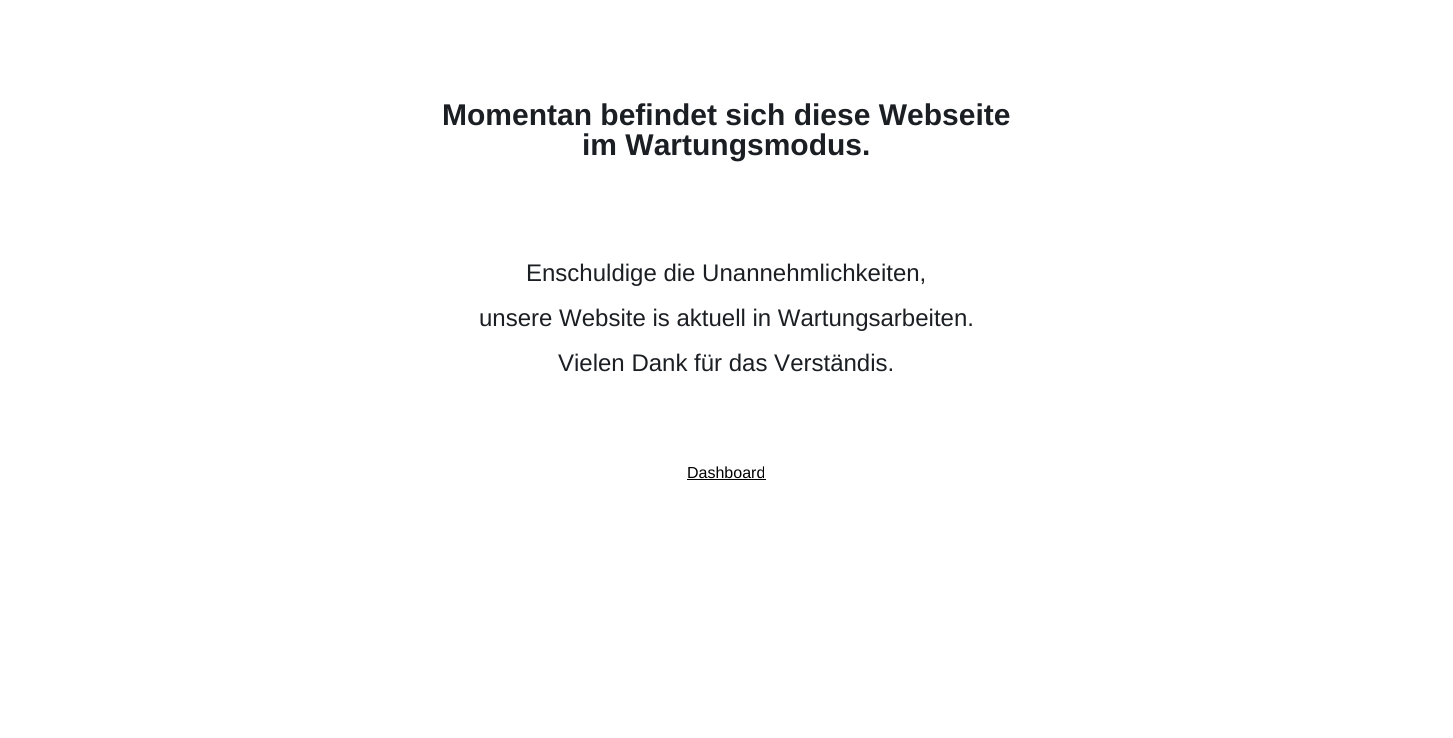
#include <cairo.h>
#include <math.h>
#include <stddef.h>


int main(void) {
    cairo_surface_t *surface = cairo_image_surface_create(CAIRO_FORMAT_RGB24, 1453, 738);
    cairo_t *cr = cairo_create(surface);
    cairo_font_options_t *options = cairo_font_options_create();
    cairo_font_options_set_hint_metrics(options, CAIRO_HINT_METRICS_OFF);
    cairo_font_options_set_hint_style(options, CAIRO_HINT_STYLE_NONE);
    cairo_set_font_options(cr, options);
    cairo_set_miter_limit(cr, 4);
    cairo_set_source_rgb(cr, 1, 1, 1);
    cairo_paint(cr);
    cairo_select_font_face(cr, "Liberation Sans", CAIRO_FONT_SLANT_NORMAL, CAIRO_FONT_WEIGHT_BOLD);
    cairo_set_font_size(cr, 30);
    cairo_set_source_rgb(cr, 0.106, 0.122, 0.137);
    cairo_move_to(cr, 442, 125);
    cairo_show_text(cr, "Momentan befindet sich diese Webseite");
    cairo_move_to(cr, 582, 155);
    cairo_show_text(cr, "im Wartungsmodus.");
    cairo_select_font_face(cr, "Liberation Sans", CAIRO_FONT_SLANT_NORMAL, CAIRO_FONT_WEIGHT_NORMAL);
    cairo_set_font_size(cr, 24);
    cairo_move_to(cr, 526, 281);
    cairo_show_text(cr, "Enschuldige die Unannehmlichkeiten,");
    cairo_move_to(cr, 479, 326);
    cairo_show_text(cr, "unsere Website is aktuell in Wartungsarbeiten.");
    cairo_move_to(cr, 558, 371);
    cairo_show_text(cr, "Vielen Dank für das Verständis.");
    cairo_set_font_size(cr, 16);
    cairo_set_source_rgb(cr, 0, 0, 0);
    cairo_move_to(cr, 687, 478);
    cairo_show_text(cr, "Dashboard");
    cairo_rectangle(cr, 687, 479, 79, 1);
    cairo_fill(cr);
    cairo_surface_write_to_png(surface, "page.png");
    cairo_font_options_destroy(options);
    cairo_destroy(cr);
    cairo_surface_destroy(surface);
    return 0;
}
